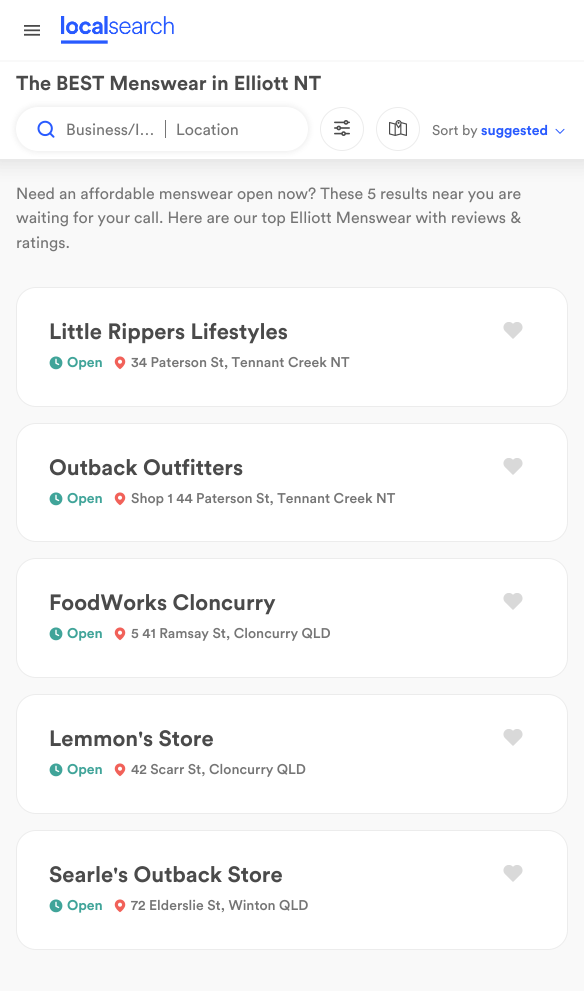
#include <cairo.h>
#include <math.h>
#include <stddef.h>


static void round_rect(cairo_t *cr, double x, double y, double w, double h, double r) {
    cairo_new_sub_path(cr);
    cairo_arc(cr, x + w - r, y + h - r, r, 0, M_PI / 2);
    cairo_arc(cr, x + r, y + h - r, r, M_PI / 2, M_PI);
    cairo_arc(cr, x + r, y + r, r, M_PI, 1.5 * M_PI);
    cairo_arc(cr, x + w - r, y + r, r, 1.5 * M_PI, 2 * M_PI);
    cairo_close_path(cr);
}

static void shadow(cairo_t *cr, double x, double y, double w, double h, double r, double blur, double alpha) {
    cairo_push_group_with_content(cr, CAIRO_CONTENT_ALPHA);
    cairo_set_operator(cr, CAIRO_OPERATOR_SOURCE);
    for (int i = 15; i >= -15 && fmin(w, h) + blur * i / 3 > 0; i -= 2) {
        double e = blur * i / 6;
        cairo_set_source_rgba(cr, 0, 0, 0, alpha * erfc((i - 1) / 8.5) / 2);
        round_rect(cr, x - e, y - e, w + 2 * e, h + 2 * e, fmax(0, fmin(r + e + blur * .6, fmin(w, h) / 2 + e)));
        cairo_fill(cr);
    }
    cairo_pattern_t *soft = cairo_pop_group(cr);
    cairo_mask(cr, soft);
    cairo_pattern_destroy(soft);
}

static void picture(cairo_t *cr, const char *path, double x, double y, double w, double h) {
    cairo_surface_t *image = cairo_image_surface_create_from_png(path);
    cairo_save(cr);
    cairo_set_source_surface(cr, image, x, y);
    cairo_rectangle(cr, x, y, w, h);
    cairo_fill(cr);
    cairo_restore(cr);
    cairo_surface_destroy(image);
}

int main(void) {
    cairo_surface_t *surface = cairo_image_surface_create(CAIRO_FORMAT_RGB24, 584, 991);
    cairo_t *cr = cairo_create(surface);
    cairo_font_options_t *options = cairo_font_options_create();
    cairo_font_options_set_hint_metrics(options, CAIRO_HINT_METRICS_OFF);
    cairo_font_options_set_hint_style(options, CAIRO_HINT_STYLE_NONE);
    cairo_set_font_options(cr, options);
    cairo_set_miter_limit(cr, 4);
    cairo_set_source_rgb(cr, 0.973, 0.973, 0.973);
    cairo_paint(cr);
    cairo_set_source_rgb(cr, 0, 0, 0);
    shadow(cr, -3, 59, 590, 105, 0, 10, 0.1);
    cairo_set_source_rgb(cr, 1, 1, 1);
    cairo_rectangle(cr, 0, 0, 584, 60);
    cairo_fill(cr);
    picture(cr, "img1.png", 24, 25, 16, 11);
    picture(cr, "img2.png", 61, 16, 113, 28);
    cairo_rectangle(cr, 0, 62, 584, 97);
    cairo_fill(cr);
    cairo_set_source_rgb(cr, 0.973, 0.973, 0.973);
    cairo_rectangle(cr, 0, 60, 584, 2);
    cairo_fill(cr);
    cairo_select_font_face(cr, "Circular", CAIRO_FONT_SLANT_NORMAL, CAIRO_FONT_WEIGHT_BOLD);
    cairo_set_font_size(cr, 20);
    cairo_set_source_rgb(cr, 0.29, 0.29, 0.29);
    cairo_move_to(cr, 16, 90);
    cairo_show_text(cr, "The BEST Menswear in Elliott NT");
    cairo_set_source_rgb(cr, 0, 0, 0);
    shadow(cr, 16, 107, 292, 44, 22, 3.5, 0.1);
    cairo_set_source_rgb(cr, 1, 1, 1);
    round_rect(cr, 16, 107, 292, 44, 22);
    cairo_fill(cr);
    picture(cr, "img3.png", 37, 120, 18, 18);
    cairo_select_font_face(cr, "Circular", CAIRO_FONT_SLANT_NORMAL, CAIRO_FONT_WEIGHT_NORMAL);
    cairo_set_font_size(cr, 16);
    cairo_set_source_rgb(cr, 0.459, 0.459, 0.459);
    cairo_move_to(cr, 66, 135);
    cairo_show_text(cr, "Business/I…");
    cairo_rectangle(cr, 165, 120, 1, 18);
    cairo_fill(cr);
    cairo_move_to(cr, 176, 135);
    cairo_show_text(cr, "Location");
    cairo_new_path(cr);
    cairo_arc(cr, 342, 129, 21.5, 0, 2 * M_PI);
    cairo_set_source_rgb(cr, 0.925, 0.925, 0.925);
    cairo_set_line_width(cr, 1);
    cairo_stroke(cr);
    picture(cr, "img4.png", 334, 120, 16, 16);
    cairo_arc(cr, 398, 129, 21.5, 0, 2 * M_PI);
    cairo_stroke(cr);
    picture(cr, "img5.png", 389, 120, 18, 16);
    cairo_set_font_size(cr, 14);
    cairo_set_source_rgb(cr, 0.459, 0.459, 0.459);
    cairo_move_to(cr, 432, 135);
    cairo_show_text(cr, "Sort by");
    cairo_select_font_face(cr, "Circular", CAIRO_FONT_SLANT_NORMAL, CAIRO_FONT_WEIGHT_BOLD);
    cairo_set_source_rgb(cr, 0.157, 0.353, 1);
    cairo_move_to(cr, 481, 135);
    cairo_show_text(cr, "suggested");
    picture(cr, "img6.png", 555, 128, 10, 6);
    cairo_select_font_face(cr, "Circular", CAIRO_FONT_SLANT_NORMAL, CAIRO_FONT_WEIGHT_NORMAL);
    cairo_set_font_size(cr, 16);
    cairo_set_source_rgb(cr, 0.459, 0.459, 0.459);
    cairo_move_to(cr, 16, 199);
    cairo_show_text(cr, "Need an affordable menswear open now? These 5 results near you are");
    cairo_move_to(cr, 16, 223);
    cairo_show_text(cr, "waiting for your call. Here are our top Elliott Menswear with reviews &");
    cairo_move_to(cr, 16, 248);
    cairo_show_text(cr, "ratings.");
    cairo_set_source_rgb(cr, 1, 1, 1);
    round_rect(cr, 16.5, 287.5, 551, 119, 19.5);
    cairo_fill_preserve(cr);
    cairo_set_source_rgb(cr, 0.925, 0.925, 0.925);
    cairo_stroke(cr);
    cairo_select_font_face(cr, "Circular", CAIRO_FONT_SLANT_NORMAL, CAIRO_FONT_WEIGHT_BOLD);
    cairo_set_font_size(cr, 22);
    cairo_set_source_rgb(cr, 0.29, 0.29, 0.29);
    cairo_move_to(cr, 49, 339);
    cairo_show_text(cr, "Little Rippers Lifestyles");
    picture(cr, "img7.png", 503, 322, 20, 17);
    picture(cr, "img8.png", 49, 356, 14, 14);
    cairo_set_font_size(cr, 14);
    cairo_set_source_rgb(cr, 0.251, 0.643, 0.6);
    cairo_move_to(cr, 67, 367);
    cairo_show_text(cr, "Open");
    picture(cr, "img9.png", 114, 356, 12, 14);
    cairo_select_font_face(cr, "Circular Medium", CAIRO_FONT_SLANT_NORMAL, CAIRO_FONT_WEIGHT_NORMAL);
    cairo_set_source_rgb(cr, 0.459, 0.459, 0.459);
    cairo_move_to(cr, 131, 367);
    cairo_show_text(cr, "34 Paterson St, Tennant Creek NT");
    cairo_set_source_rgb(cr, 1, 1, 1);
    round_rect(cr, 16.5, 423.5, 551, 118, 19.5);
    cairo_fill_preserve(cr);
    cairo_set_source_rgb(cr, 0.925, 0.925, 0.925);
    cairo_stroke(cr);
    cairo_select_font_face(cr, "Circular", CAIRO_FONT_SLANT_NORMAL, CAIRO_FONT_WEIGHT_BOLD);
    cairo_set_font_size(cr, 22);
    cairo_set_source_rgb(cr, 0.29, 0.29, 0.29);
    cairo_move_to(cr, 49, 475);
    cairo_show_text(cr, "Outback Outfitters");
    picture(cr, "img7.png", 503, 458, 20, 17);
    picture(cr, "img8.png", 49, 492, 14, 14);
    cairo_set_font_size(cr, 14);
    cairo_set_source_rgb(cr, 0.251, 0.643, 0.6);
    cairo_move_to(cr, 67, 503);
    cairo_show_text(cr, "Open");
    picture(cr, "img9.png", 114, 492, 12, 14);
    cairo_select_font_face(cr, "Circular Medium", CAIRO_FONT_SLANT_NORMAL, CAIRO_FONT_WEIGHT_NORMAL);
    cairo_set_source_rgb(cr, 0.459, 0.459, 0.459);
    cairo_move_to(cr, 131, 503);
    cairo_show_text(cr, "Shop 1 44 Paterson St, Tennant Creek NT");
    cairo_set_source_rgb(cr, 1, 1, 1);
    round_rect(cr, 16.5, 558.5, 551, 119, 19.5);
    cairo_fill_preserve(cr);
    cairo_set_source_rgb(cr, 0.925, 0.925, 0.925);
    cairo_stroke(cr);
    cairo_select_font_face(cr, "Circular", CAIRO_FONT_SLANT_NORMAL, CAIRO_FONT_WEIGHT_BOLD);
    cairo_set_font_size(cr, 22);
    cairo_set_source_rgb(cr, 0.29, 0.29, 0.29);
    cairo_move_to(cr, 49, 610);
    cairo_show_text(cr, "FoodWorks Cloncurry");
    picture(cr, "img7.png", 503, 593, 20, 17);
    picture(cr, "img8.png", 49, 627, 14, 14);
    cairo_set_font_size(cr, 14);
    cairo_set_source_rgb(cr, 0.251, 0.643, 0.6);
    cairo_move_to(cr, 67, 638);
    cairo_show_text(cr, "Open");
    picture(cr, "img9.png", 114, 627, 12, 14);
    cairo_select_font_face(cr, "Circular Medium", CAIRO_FONT_SLANT_NORMAL, CAIRO_FONT_WEIGHT_NORMAL);
    cairo_set_source_rgb(cr, 0.459, 0.459, 0.459);
    cairo_move_to(cr, 131, 638);
    cairo_show_text(cr, "5 41 Ramsay St, Cloncurry QLD");
    cairo_set_source_rgb(cr, 1, 1, 1);
    round_rect(cr, 16.5, 694.5, 551, 119, 19.5);
    cairo_fill_preserve(cr);
    cairo_set_source_rgb(cr, 0.925, 0.925, 0.925);
    cairo_stroke(cr);
    cairo_select_font_face(cr, "Circular", CAIRO_FONT_SLANT_NORMAL, CAIRO_FONT_WEIGHT_BOLD);
    cairo_set_font_size(cr, 22);
    cairo_set_source_rgb(cr, 0.29, 0.29, 0.29);
    cairo_move_to(cr, 49, 746);
    cairo_show_text(cr, "Lemmon's Store");
    picture(cr, "img7.png", 503, 729, 20, 17);
    picture(cr, "img8.png", 49, 763, 14, 14);
    cairo_set_font_size(cr, 14);
    cairo_set_source_rgb(cr, 0.251, 0.643, 0.6);
    cairo_move_to(cr, 67, 774);
    cairo_show_text(cr, "Open");
    picture(cr, "img9.png", 114, 763, 12, 14);
    cairo_select_font_face(cr, "Circular Medium", CAIRO_FONT_SLANT_NORMAL, CAIRO_FONT_WEIGHT_NORMAL);
    cairo_set_source_rgb(cr, 0.459, 0.459, 0.459);
    cairo_move_to(cr, 131, 774);
    cairo_show_text(cr, "42 Scarr St, Cloncurry QLD");
    cairo_set_source_rgb(cr, 1, 1, 1);
    round_rect(cr, 16.5, 830.5, 551, 119, 19.5);
    cairo_fill_preserve(cr);
    cairo_set_source_rgb(cr, 0.925, 0.925, 0.925);
    cairo_stroke(cr);
    cairo_select_font_face(cr, "Circular", CAIRO_FONT_SLANT_NORMAL, CAIRO_FONT_WEIGHT_BOLD);
    cairo_set_font_size(cr, 22);
    cairo_set_source_rgb(cr, 0.29, 0.29, 0.29);
    cairo_move_to(cr, 49, 882);
    cairo_show_text(cr, "Searle's Outback Store");
    picture(cr, "img7.png", 503, 865, 20, 17);
    picture(cr, "img8.png", 49, 899, 14, 14);
    cairo_set_font_size(cr, 14);
    cairo_set_source_rgb(cr, 0.251, 0.643, 0.6);
    cairo_move_to(cr, 67, 910);
    cairo_show_text(cr, "Open");
    picture(cr, "img9.png", 114, 899, 12, 14);
    cairo_select_font_face(cr, "Circular Medium", CAIRO_FONT_SLANT_NORMAL, CAIRO_FONT_WEIGHT_NORMAL);
    cairo_set_source_rgb(cr, 0.459, 0.459, 0.459);
    cairo_move_to(cr, 131, 910);
    cairo_show_text(cr, "72 Elderslie St, Winton QLD");
    cairo_surface_write_to_png(surface, "page.png");
    cairo_font_options_destroy(options);
    cairo_destroy(cr);
    cairo_surface_destroy(surface);
    return 0;
}
